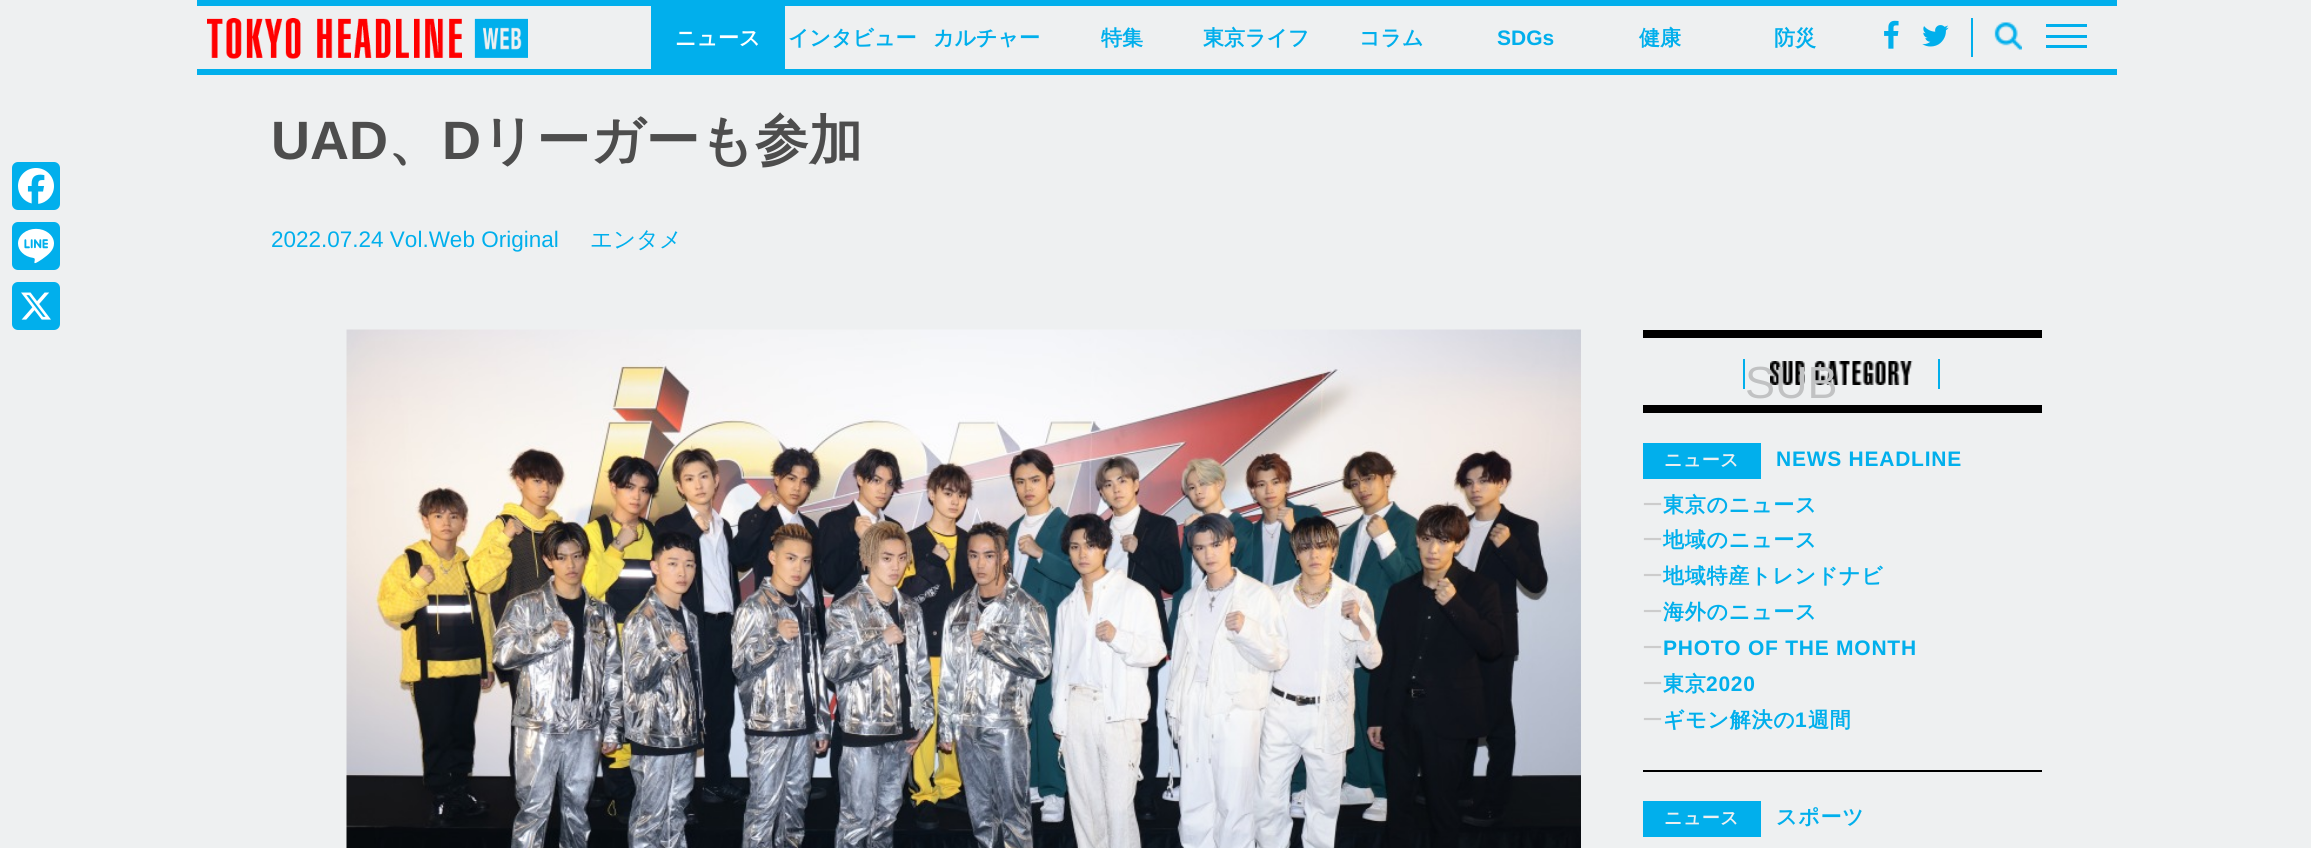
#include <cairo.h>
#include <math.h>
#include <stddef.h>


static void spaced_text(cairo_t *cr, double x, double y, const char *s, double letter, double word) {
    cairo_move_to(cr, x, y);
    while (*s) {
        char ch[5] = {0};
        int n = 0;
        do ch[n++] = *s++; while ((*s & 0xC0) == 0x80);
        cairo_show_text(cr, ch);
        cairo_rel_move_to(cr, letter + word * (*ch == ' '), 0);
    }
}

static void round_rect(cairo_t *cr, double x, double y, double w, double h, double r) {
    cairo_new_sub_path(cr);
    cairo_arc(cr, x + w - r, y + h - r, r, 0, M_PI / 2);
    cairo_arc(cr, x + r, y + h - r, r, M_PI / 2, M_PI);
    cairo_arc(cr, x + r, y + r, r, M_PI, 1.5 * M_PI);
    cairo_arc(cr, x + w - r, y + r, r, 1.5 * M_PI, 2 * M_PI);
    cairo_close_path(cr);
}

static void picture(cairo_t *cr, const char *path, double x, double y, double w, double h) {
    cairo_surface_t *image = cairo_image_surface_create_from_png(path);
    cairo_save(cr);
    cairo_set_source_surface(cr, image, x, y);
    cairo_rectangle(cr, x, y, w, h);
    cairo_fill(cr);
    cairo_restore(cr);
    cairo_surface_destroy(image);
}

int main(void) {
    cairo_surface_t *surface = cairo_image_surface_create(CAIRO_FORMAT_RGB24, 2311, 848);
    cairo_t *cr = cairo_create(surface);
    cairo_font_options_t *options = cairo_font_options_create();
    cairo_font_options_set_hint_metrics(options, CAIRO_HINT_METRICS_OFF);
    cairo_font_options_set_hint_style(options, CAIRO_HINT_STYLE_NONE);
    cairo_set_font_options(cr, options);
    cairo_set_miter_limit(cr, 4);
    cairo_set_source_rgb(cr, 0.933, 0.941, 0.945);
    cairo_paint(cr);
    cairo_set_source_rgb(cr, 0.004, 0.686, 0.925);
    round_rect(cr, 12, 162, 48, 48, 6);
    cairo_fill(cr);
    picture(cr, "img1.png", 18, 168, 36, 36);
    round_rect(cr, 12, 222, 48, 48, 6);
    cairo_fill(cr);
    picture(cr, "img2.png", 18, 228, 36, 36);
    round_rect(cr, 12, 282, 48, 48, 6);
    cairo_fill(cr);
    picture(cr, "img3.png", 21, 292, 30, 28);
    cairo_rectangle(cr, 197, 0, 1920, 6);
    cairo_fill(cr);
    cairo_rectangle(cr, 197, 69, 1920, 6);
    cairo_fill(cr);
    picture(cr, "img4.png", 207, 18, 321, 41);
    cairo_rectangle(cr, 651, 6, 134, 63);
    cairo_fill(cr);
    cairo_select_font_face(cr, "WenQuanYi Zen Hei", CAIRO_FONT_SLANT_NORMAL, CAIRO_FONT_WEIGHT_BOLD);
    cairo_set_font_size(cr, 21);
    cairo_set_source_rgb(cr, 1, 1, 1);
    cairo_move_to(cr, 675, 45);
    cairo_show_text(cr, "ニュース");
    cairo_set_source_rgb(cr, 0.004, 0.686, 0.925);
    cairo_move_to(cr, 788, 45);
    cairo_show_text(cr, "インタビュー");
    cairo_move_to(cr, 933, 45);
    cairo_show_text(cr, "カルチャー");
    cairo_move_to(cr, 1101, 45);
    cairo_show_text(cr, "特集");
    cairo_move_to(cr, 1203, 45);
    cairo_show_text(cr, "東京ライフ");
    cairo_move_to(cr, 1359, 45);
    cairo_show_text(cr, "コラム");
    cairo_select_font_face(cr, "Liberation Sans", CAIRO_FONT_SLANT_NORMAL, CAIRO_FONT_WEIGHT_BOLD);
    cairo_move_to(cr, 1497, 45);
    cairo_show_text(cr, "SDGs");
    cairo_select_font_face(cr, "WenQuanYi Zen Hei", CAIRO_FONT_SLANT_NORMAL, CAIRO_FONT_WEIGHT_BOLD);
    cairo_move_to(cr, 1639, 45);
    cairo_show_text(cr, "健康");
    cairo_move_to(cr, 1774, 45);
    cairo_show_text(cr, "防災");
    picture(cr, "img5.png", 1884, 20, 15, 29);
    picture(cr, "img6.png", 1922, 25, 27, 22);
    cairo_rectangle(cr, 1971, 18, 2, 39);
    cairo_fill(cr);
    picture(cr, "img7.png", 1994, 22, 28, 28);
    cairo_rectangle(cr, 2046, 24, 41, 3);
    cairo_fill(cr);
    cairo_rectangle(cr, 2046, 35, 41, 3);
    cairo_fill(cr);
    cairo_rectangle(cr, 2046, 45, 41, 3);
    cairo_fill(cr);
    cairo_select_font_face(cr, "Liberation Sans", CAIRO_FONT_SLANT_NORMAL, CAIRO_FONT_WEIGHT_BOLD);
    cairo_set_font_size(cr, 54);
    cairo_set_source_rgb(cr, 0.302, 0.302, 0.302);
    cairo_move_to(cr, 271, 159);
    cairo_show_text(cr, "UAD");
    cairo_select_font_face(cr, "WenQuanYi Zen Hei", CAIRO_FONT_SLANT_NORMAL, CAIRO_FONT_WEIGHT_BOLD);
    cairo_move_to(cr, 388, 159);
    cairo_show_text(cr, "、");
    cairo_select_font_face(cr, "Liberation Sans", CAIRO_FONT_SLANT_NORMAL, CAIRO_FONT_WEIGHT_BOLD);
    cairo_move_to(cr, 442, 159);
    cairo_show_text(cr, "D");
    cairo_select_font_face(cr, "WenQuanYi Zen Hei", CAIRO_FONT_SLANT_NORMAL, CAIRO_FONT_WEIGHT_BOLD);
    cairo_move_to(cr, 481, 159);
    cairo_show_text(cr, "リーガーも参加");
    cairo_select_font_face(cr, "Liberation Sans", CAIRO_FONT_SLANT_NORMAL, CAIRO_FONT_WEIGHT_NORMAL);
    cairo_set_font_size(cr, 22.5);
    cairo_set_source_rgb(cr, 0.004, 0.686, 0.925);
    cairo_move_to(cr, 271, 247);
    cairo_show_text(cr, "2022.07.24 Vol.Web Original");
    cairo_select_font_face(cr, "WenQuanYi Zen Hei Medium", CAIRO_FONT_SLANT_NORMAL, CAIRO_FONT_WEIGHT_NORMAL);
    cairo_move_to(cr, 590, 247);
    cairo_show_text(cr, "エンタメ");
    picture(cr, "img8.png", 346, 329, 1235, 519);
    cairo_set_source_rgb(cr, 0, 0, 0);
    cairo_rectangle(cr, 1643, 330, 399, 8);
    cairo_fill(cr);
    cairo_rectangle(cr, 1643, 405, 399, 8);
    cairo_fill(cr);
    picture(cr, "img9.png", 1770, 361, 143, 24);
    cairo_set_source_rgb(cr, 0.004, 0.686, 0.925);
    cairo_rectangle(cr, 1938, 359, 2, 30);
    cairo_fill(cr);
    cairo_rectangle(cr, 1743, 359, 2, 30);
    cairo_fill(cr);
    cairo_select_font_face(cr, "Liberation Sans", CAIRO_FONT_SLANT_NORMAL, CAIRO_FONT_WEIGHT_NORMAL);
    cairo_set_font_size(cr, 45);
    cairo_set_source_rgb(cr, 0.757, 0.761, 0.765);
    cairo_move_to(cr, 1745, 398);
    cairo_show_text(cr, "SUB");
    cairo_set_source_rgb(cr, 0, 0, 0);
    cairo_rectangle(cr, 1643, 770, 399, 2);
    cairo_fill(cr);
    cairo_set_source_rgb(cr, 0.004, 0.686, 0.925);
    cairo_rectangle(cr, 1643, 443, 118, 36);
    cairo_fill(cr);
    cairo_select_font_face(cr, "WenQuanYi Zen Hei", CAIRO_FONT_SLANT_NORMAL, CAIRO_FONT_WEIGHT_BOLD);
    cairo_set_font_size(cr, 18);
    cairo_set_source_rgb(cr, 0.929, 0.941, 0.945);
    spaced_text(cr, 1664, 466, "ニュース", 0.5, 0);
    cairo_select_font_face(cr, "Liberation Sans", CAIRO_FONT_SLANT_NORMAL, CAIRO_FONT_WEIGHT_BOLD);
    cairo_set_font_size(cr, 21);
    cairo_set_source_rgb(cr, 0.004, 0.686, 0.925);
    spaced_text(cr, 1776, 466, "NEWS HEADLINE", 0.75, 0);
    cairo_select_font_face(cr, "WenQuanYi Zen Hei Medium", CAIRO_FONT_SLANT_NORMAL, CAIRO_FONT_WEIGHT_NORMAL);
    cairo_set_source_rgb(cr, 0.8, 0.8, 0.8);
    cairo_move_to(cr, 1642, 512);
    cairo_show_text(cr, "ー");
    cairo_select_font_face(cr, "WenQuanYi Zen Hei", CAIRO_FONT_SLANT_NORMAL, CAIRO_FONT_WEIGHT_BOLD);
    cairo_set_source_rgb(cr, 0.004, 0.686, 0.925);
    spaced_text(cr, 1663, 512, "東京のニュース", 0.75, 0);
    cairo_select_font_face(cr, "WenQuanYi Zen Hei Medium", CAIRO_FONT_SLANT_NORMAL, CAIRO_FONT_WEIGHT_NORMAL);
    cairo_set_source_rgb(cr, 0.8, 0.8, 0.8);
    cairo_move_to(cr, 1642, 547);
    cairo_show_text(cr, "ー");
    cairo_select_font_face(cr, "WenQuanYi Zen Hei", CAIRO_FONT_SLANT_NORMAL, CAIRO_FONT_WEIGHT_BOLD);
    cairo_set_source_rgb(cr, 0.004, 0.686, 0.925);
    spaced_text(cr, 1663, 547, "地域のニュース", 0.75, 0);
    cairo_select_font_face(cr, "WenQuanYi Zen Hei Medium", CAIRO_FONT_SLANT_NORMAL, CAIRO_FONT_WEIGHT_NORMAL);
    cairo_set_source_rgb(cr, 0.8, 0.8, 0.8);
    cairo_move_to(cr, 1642, 583);
    cairo_show_text(cr, "ー");
    cairo_select_font_face(cr, "WenQuanYi Zen Hei", CAIRO_FONT_SLANT_NORMAL, CAIRO_FONT_WEIGHT_BOLD);
    cairo_set_source_rgb(cr, 0.004, 0.686, 0.925);
    spaced_text(cr, 1663, 583, "地域特産トレンドナビ", 0.75, 0);
    cairo_select_font_face(cr, "WenQuanYi Zen Hei Medium", CAIRO_FONT_SLANT_NORMAL, CAIRO_FONT_WEIGHT_NORMAL);
    cairo_set_source_rgb(cr, 0.8, 0.8, 0.8);
    cairo_move_to(cr, 1642, 619);
    cairo_show_text(cr, "ー");
    cairo_select_font_face(cr, "WenQuanYi Zen Hei", CAIRO_FONT_SLANT_NORMAL, CAIRO_FONT_WEIGHT_BOLD);
    cairo_set_source_rgb(cr, 0.004, 0.686, 0.925);
    spaced_text(cr, 1663, 619, "海外のニュース", 0.75, 0);
    cairo_select_font_face(cr, "WenQuanYi Zen Hei Medium", CAIRO_FONT_SLANT_NORMAL, CAIRO_FONT_WEIGHT_NORMAL);
    cairo_set_source_rgb(cr, 0.8, 0.8, 0.8);
    cairo_move_to(cr, 1642, 655);
    cairo_show_text(cr, "ー");
    cairo_select_font_face(cr, "Liberation Sans", CAIRO_FONT_SLANT_NORMAL, CAIRO_FONT_WEIGHT_BOLD);
    cairo_set_source_rgb(cr, 0.004, 0.686, 0.925);
    spaced_text(cr, 1663, 655, "PHOTO OF THE MONTH", 0.75, 0);
    cairo_select_font_face(cr, "WenQuanYi Zen Hei Medium", CAIRO_FONT_SLANT_NORMAL, CAIRO_FONT_WEIGHT_NORMAL);
    cairo_set_source_rgb(cr, 0.8, 0.8, 0.8);
    cairo_move_to(cr, 1642, 691);
    cairo_show_text(cr, "ー");
    cairo_select_font_face(cr, "WenQuanYi Zen Hei", CAIRO_FONT_SLANT_NORMAL, CAIRO_FONT_WEIGHT_BOLD);
    cairo_set_source_rgb(cr, 0.004, 0.686, 0.925);
    spaced_text(cr, 1663, 691, "東京", 0.75, 0);
    cairo_select_font_face(cr, "Liberation Sans", CAIRO_FONT_SLANT_NORMAL, CAIRO_FONT_WEIGHT_BOLD);
    spaced_text(cr, 1706, 691, "2020", 0.75, 0);
    cairo_select_font_face(cr, "WenQuanYi Zen Hei Medium", CAIRO_FONT_SLANT_NORMAL, CAIRO_FONT_WEIGHT_NORMAL);
    cairo_set_source_rgb(cr, 0.8, 0.8, 0.8);
    cairo_move_to(cr, 1642, 727);
    cairo_show_text(cr, "ー");
    cairo_select_font_face(cr, "WenQuanYi Zen Hei", CAIRO_FONT_SLANT_NORMAL, CAIRO_FONT_WEIGHT_BOLD);
    cairo_set_source_rgb(cr, 0.004, 0.686, 0.925);
    spaced_text(cr, 1663, 727, "ギモン解決の", 0.75, 0);
    cairo_select_font_face(cr, "Liberation Sans", CAIRO_FONT_SLANT_NORMAL, CAIRO_FONT_WEIGHT_BOLD);
    spaced_text(cr, 1795, 727, "1", 0.75, 0);
    cairo_select_font_face(cr, "WenQuanYi Zen Hei", CAIRO_FONT_SLANT_NORMAL, CAIRO_FONT_WEIGHT_BOLD);
    spaced_text(cr, 1808, 727, "週間", 0.75, 0);
    cairo_rectangle(cr, 1643, 801, 118, 36);
    cairo_fill(cr);
    cairo_set_font_size(cr, 18);
    cairo_set_source_rgb(cr, 0.929, 0.941, 0.945);
    spaced_text(cr, 1664, 824, "ニュース", 0.5, 0);
    cairo_set_font_size(cr, 21);
    cairo_set_source_rgb(cr, 0.004, 0.686, 0.925);
    spaced_text(cr, 1776, 824, "スポーツ", 0.75, 0);
    cairo_surface_write_to_png(surface, "page.png");
    cairo_font_options_destroy(options);
    cairo_destroy(cr);
    cairo_surface_destroy(surface);
    return 0;
}
